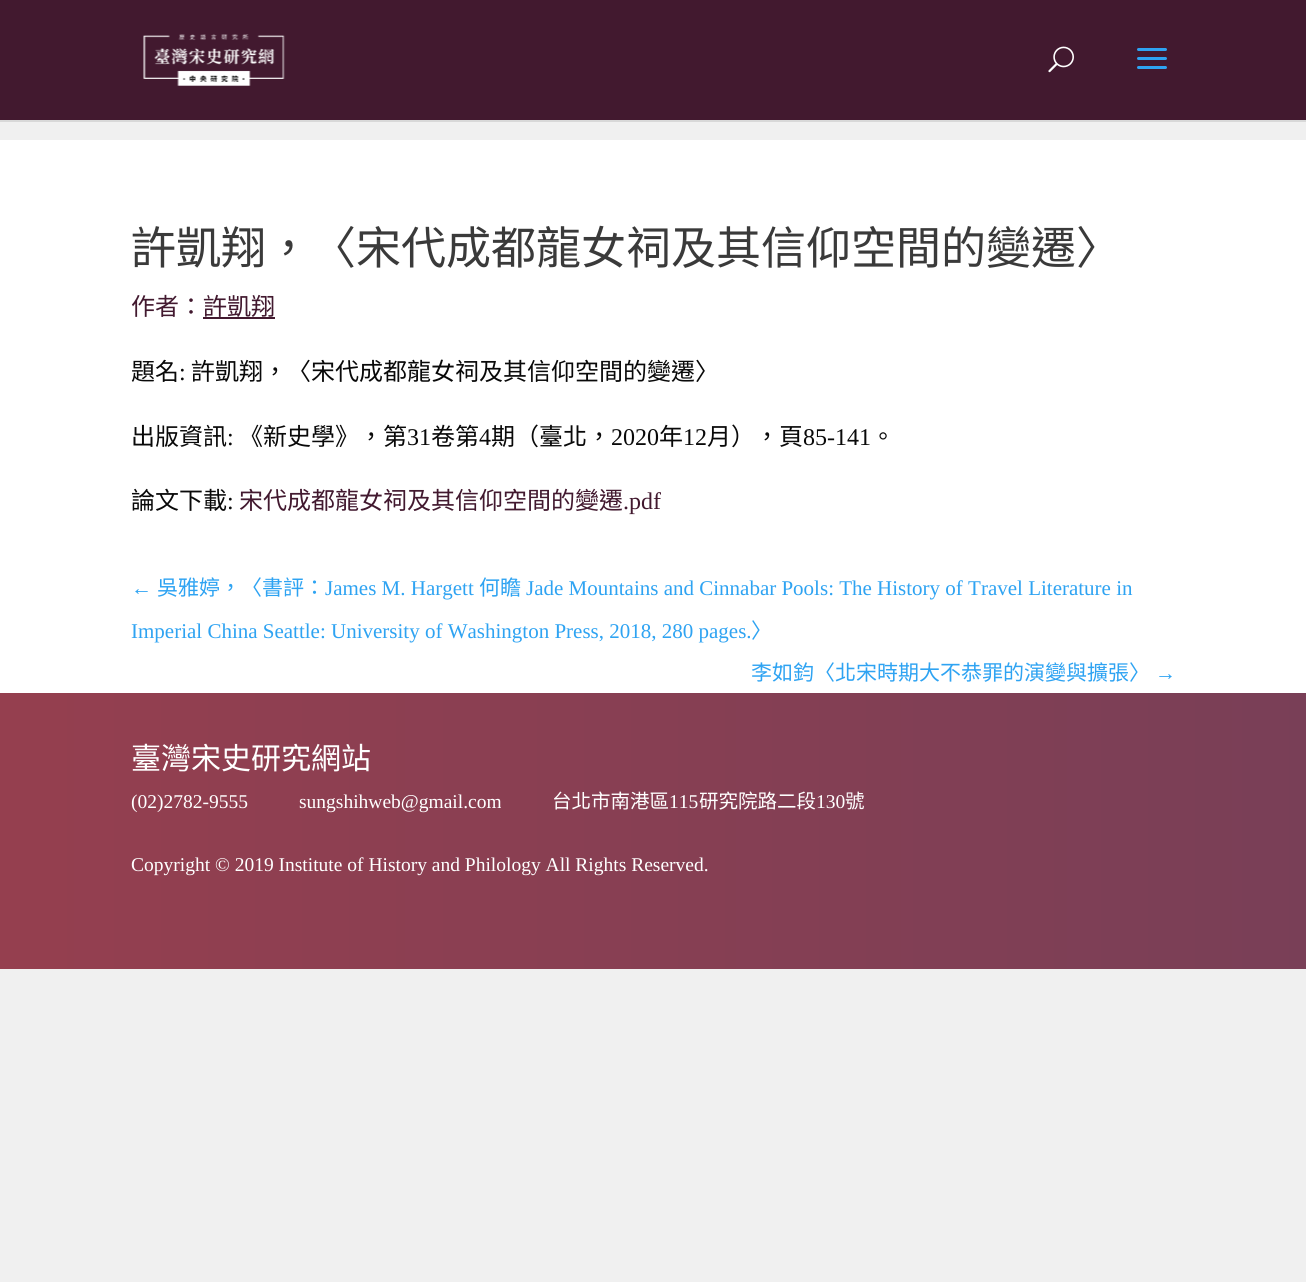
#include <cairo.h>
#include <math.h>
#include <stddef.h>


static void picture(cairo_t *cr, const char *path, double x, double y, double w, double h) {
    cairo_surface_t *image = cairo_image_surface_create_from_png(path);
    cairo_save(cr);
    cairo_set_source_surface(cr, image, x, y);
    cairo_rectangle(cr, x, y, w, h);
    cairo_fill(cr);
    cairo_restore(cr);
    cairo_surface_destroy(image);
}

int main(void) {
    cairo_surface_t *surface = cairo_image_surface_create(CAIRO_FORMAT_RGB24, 1306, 1282);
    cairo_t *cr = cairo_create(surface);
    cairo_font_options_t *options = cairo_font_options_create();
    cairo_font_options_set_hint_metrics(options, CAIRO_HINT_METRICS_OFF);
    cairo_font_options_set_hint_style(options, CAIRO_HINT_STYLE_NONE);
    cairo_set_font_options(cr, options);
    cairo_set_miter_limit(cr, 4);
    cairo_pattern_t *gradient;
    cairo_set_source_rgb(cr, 0.941, 0.941, 0.941);
    cairo_paint(cr);
    cairo_set_source_rgb(cr, 0.847, 0.847, 0.847);
    cairo_new_path(cr);
    cairo_move_to(cr, 0, 120);
    cairo_line_to(cr, 0, 122);
    cairo_line_to(cr, 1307, 122);
    cairo_line_to(cr, 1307, 2);
    cairo_line_to(cr, 1306, 2);
    cairo_line_to(cr, 1306, 120);
    cairo_close_path(cr);
    cairo_fill(cr);
    cairo_set_source_rgb(cr, 0.259, 0.098, 0.184);
    cairo_rectangle(cr, 0, 0, 1306, 120);
    cairo_fill(cr);
    picture(cr, "img1.png", 143, 34, 142, 52);
    picture(cr, "img2.png", 1048, 46, 26, 27);
    picture(cr, "img3.png", 1137, 48, 30, 21);
    cairo_set_source_rgb(cr, 1, 1, 1);
    cairo_rectangle(cr, 0, 140, 1306, 553);
    cairo_fill(cr);
    cairo_select_font_face(cr, "Noto Sans CJK TC", CAIRO_FONT_SLANT_NORMAL, CAIRO_FONT_WEIGHT_NORMAL);
    cairo_set_font_size(cr, 45);
    cairo_set_source_rgb(cr, 0.227, 0.227, 0.227);
    cairo_move_to(cr, 131, 264);
    cairo_show_text(cr, "許凱翔，〈宋代成都龍女祠及其信仰空間的變遷〉");
    cairo_set_font_size(cr, 24);
    cairo_set_source_rgb(cr, 0.259, 0.098, 0.184);
    cairo_move_to(cr, 131, 315);
    cairo_show_text(cr, "作者：許凱翔");
    cairo_rectangle(cr, 203, 317, 72, 2);
    cairo_fill(cr);
    cairo_set_source_rgb(cr, 0.039, 0.039, 0.039);
    cairo_move_to(cr, 131, 380);
    cairo_show_text(cr, "題名");
    cairo_select_font_face(cr, "Liberation Serif", CAIRO_FONT_SLANT_NORMAL, CAIRO_FONT_WEIGHT_NORMAL);
    cairo_move_to(cr, 179, 380);
    cairo_show_text(cr, ":");
    cairo_select_font_face(cr, "Noto Sans CJK TC", CAIRO_FONT_SLANT_NORMAL, CAIRO_FONT_WEIGHT_NORMAL);
    cairo_move_to(cr, 191, 380);
    cairo_show_text(cr, "許凱翔，〈宋代成都龍女祠及其信仰空間的變遷〉");
    cairo_move_to(cr, 131, 445);
    cairo_show_text(cr, "出版資訊");
    cairo_select_font_face(cr, "Liberation Serif", CAIRO_FONT_SLANT_NORMAL, CAIRO_FONT_WEIGHT_NORMAL);
    cairo_move_to(cr, 227, 445);
    cairo_show_text(cr, ":");
    cairo_select_font_face(cr, "Noto Sans CJK TC", CAIRO_FONT_SLANT_NORMAL, CAIRO_FONT_WEIGHT_NORMAL);
    cairo_move_to(cr, 239, 445);
    cairo_show_text(cr, "《新史學》，第");
    cairo_select_font_face(cr, "Liberation Serif", CAIRO_FONT_SLANT_NORMAL, CAIRO_FONT_WEIGHT_NORMAL);
    cairo_move_to(cr, 407, 445);
    cairo_show_text(cr, "31");
    cairo_select_font_face(cr, "Noto Sans CJK TC", CAIRO_FONT_SLANT_NORMAL, CAIRO_FONT_WEIGHT_NORMAL);
    cairo_move_to(cr, 431, 445);
    cairo_show_text(cr, "卷第");
    cairo_select_font_face(cr, "Liberation Serif", CAIRO_FONT_SLANT_NORMAL, CAIRO_FONT_WEIGHT_NORMAL);
    cairo_move_to(cr, 479, 445);
    cairo_show_text(cr, "4");
    cairo_select_font_face(cr, "Noto Sans CJK TC", CAIRO_FONT_SLANT_NORMAL, CAIRO_FONT_WEIGHT_NORMAL);
    cairo_move_to(cr, 491, 445);
    cairo_show_text(cr, "期（臺北，");
    cairo_select_font_face(cr, "Liberation Serif", CAIRO_FONT_SLANT_NORMAL, CAIRO_FONT_WEIGHT_NORMAL);
    cairo_move_to(cr, 611, 445);
    cairo_show_text(cr, "2020");
    cairo_select_font_face(cr, "Noto Sans CJK TC", CAIRO_FONT_SLANT_NORMAL, CAIRO_FONT_WEIGHT_NORMAL);
    cairo_move_to(cr, 659, 445);
    cairo_show_text(cr, "年");
    cairo_select_font_face(cr, "Liberation Serif", CAIRO_FONT_SLANT_NORMAL, CAIRO_FONT_WEIGHT_NORMAL);
    cairo_move_to(cr, 683, 445);
    cairo_show_text(cr, "12");
    cairo_select_font_face(cr, "Noto Sans CJK TC", CAIRO_FONT_SLANT_NORMAL, CAIRO_FONT_WEIGHT_NORMAL);
    cairo_move_to(cr, 707, 445);
    cairo_show_text(cr, "月），頁");
    cairo_select_font_face(cr, "Liberation Serif", CAIRO_FONT_SLANT_NORMAL, CAIRO_FONT_WEIGHT_NORMAL);
    cairo_move_to(cr, 803, 445);
    cairo_show_text(cr, "85-141");
    cairo_select_font_face(cr, "Noto Sans CJK TC", CAIRO_FONT_SLANT_NORMAL, CAIRO_FONT_WEIGHT_NORMAL);
    cairo_move_to(cr, 871, 445);
    cairo_show_text(cr, "。");
    cairo_move_to(cr, 131, 509);
    cairo_show_text(cr, "論文下載");
    cairo_select_font_face(cr, "Liberation Serif", CAIRO_FONT_SLANT_NORMAL, CAIRO_FONT_WEIGHT_NORMAL);
    cairo_move_to(cr, 227, 509);
    cairo_show_text(cr, ":");
    cairo_select_font_face(cr, "Noto Sans CJK TC", CAIRO_FONT_SLANT_NORMAL, CAIRO_FONT_WEIGHT_NORMAL);
    cairo_set_source_rgb(cr, 0.259, 0.098, 0.184);
    cairo_move_to(cr, 239, 509);
    cairo_show_text(cr, "宋代成都龍女祠及其信仰空間的變遷");
    cairo_select_font_face(cr, "Liberation Serif", CAIRO_FONT_SLANT_NORMAL, CAIRO_FONT_WEIGHT_NORMAL);
    cairo_move_to(cr, 623, 509);
    cairo_show_text(cr, ".pdf");
    cairo_set_font_size(cr, 21);
    cairo_set_source_rgb(cr, 0.18, 0.639, 0.949);
    cairo_move_to(cr, 131, 595);
    cairo_show_text(cr, "←");
    cairo_select_font_face(cr, "Noto Sans CJK TC", CAIRO_FONT_SLANT_NORMAL, CAIRO_FONT_WEIGHT_NORMAL);
    cairo_move_to(cr, 157, 595);
    cairo_show_text(cr, "吳雅婷，〈書評：");
    cairo_select_font_face(cr, "Liberation Serif", CAIRO_FONT_SLANT_NORMAL, CAIRO_FONT_WEIGHT_NORMAL);
    cairo_move_to(cr, 325, 595);
    cairo_show_text(cr, "James M. Hargett");
    cairo_select_font_face(cr, "Noto Sans CJK TC", CAIRO_FONT_SLANT_NORMAL, CAIRO_FONT_WEIGHT_NORMAL);
    cairo_move_to(cr, 479, 595);
    cairo_show_text(cr, "何瞻");
    cairo_select_font_face(cr, "Liberation Serif", CAIRO_FONT_SLANT_NORMAL, CAIRO_FONT_WEIGHT_NORMAL);
    cairo_move_to(cr, 526, 595);
    cairo_show_text(cr, "Jade Mountains and Cinnabar Pools: The History of Travel Literature in");
    cairo_move_to(cr, 131, 638);
    cairo_show_text(cr, "Imperial China Seattle: University of Washington Press, 2018, 280 pages.");
    cairo_select_font_face(cr, "Noto Sans CJK TC", CAIRO_FONT_SLANT_NORMAL, CAIRO_FONT_WEIGHT_NORMAL);
    cairo_move_to(cr, 751, 638);
    cairo_show_text(cr, "〉");
    cairo_move_to(cr, 751, 680);
    cairo_show_text(cr, "李如鈞〈北宋時期大不恭罪的演變與擴張〉");
    cairo_select_font_face(cr, "Liberation Serif", CAIRO_FONT_SLANT_NORMAL, CAIRO_FONT_WEIGHT_NORMAL);
    cairo_move_to(cr, 1155, 680);
    cairo_show_text(cr, "→");
    gradient = cairo_pattern_create_linear(0, 831, 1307, 831);
    cairo_pattern_add_color_stop_rgba(gradient, 0, 0.584, 0.247, 0.31, 1);
    cairo_pattern_add_color_stop_rgba(gradient, 1, 0.475, 0.247, 0.341, 1);
    cairo_set_source(cr, gradient);
    cairo_pattern_destroy(gradient);
    cairo_rectangle(cr, 0, 693, 1306, 276);
    cairo_fill(cr);
    cairo_select_font_face(cr, "Noto Sans CJK TC", CAIRO_FONT_SLANT_NORMAL, CAIRO_FONT_WEIGHT_NORMAL);
    cairo_set_font_size(cr, 30);
    cairo_set_source_rgb(cr, 1, 1, 1);
    cairo_move_to(cr, 131, 769);
    cairo_show_text(cr, "臺灣宋史研究網站");
    cairo_select_font_face(cr, "Liberation Serif", CAIRO_FONT_SLANT_NORMAL, CAIRO_FONT_WEIGHT_NORMAL);
    cairo_set_font_size(cr, 19.5);
    cairo_move_to(cr, 131, 808);
    cairo_show_text(cr, "(02)2782-9555");
    cairo_move_to(cr, 299, 808);
    cairo_show_text(cr, "sungshihweb@gmail.com");
    cairo_select_font_face(cr, "Noto Sans CJK TC", CAIRO_FONT_SLANT_NORMAL, CAIRO_FONT_WEIGHT_NORMAL);
    cairo_move_to(cr, 552, 808);
    cairo_show_text(cr, "台北市南港區");
    cairo_select_font_face(cr, "Liberation Serif", CAIRO_FONT_SLANT_NORMAL, CAIRO_FONT_WEIGHT_NORMAL);
    cairo_move_to(cr, 669, 808);
    cairo_show_text(cr, "115");
    cairo_select_font_face(cr, "Noto Sans CJK TC", CAIRO_FONT_SLANT_NORMAL, CAIRO_FONT_WEIGHT_NORMAL);
    cairo_move_to(cr, 699, 808);
    cairo_show_text(cr, "研究院路二段");
    cairo_select_font_face(cr, "Liberation Serif", CAIRO_FONT_SLANT_NORMAL, CAIRO_FONT_WEIGHT_NORMAL);
    cairo_move_to(cr, 816, 808);
    cairo_show_text(cr, "130");
    cairo_select_font_face(cr, "Noto Sans CJK TC", CAIRO_FONT_SLANT_NORMAL, CAIRO_FONT_WEIGHT_NORMAL);
    cairo_move_to(cr, 845, 808);
    cairo_show_text(cr, "號");
    cairo_select_font_face(cr, "Liberation Serif", CAIRO_FONT_SLANT_NORMAL, CAIRO_FONT_WEIGHT_NORMAL);
    cairo_move_to(cr, 131, 871);
    cairo_show_text(cr, "Copyright © 2019 Institute of History and Philology All Rights Reserved.");
    cairo_surface_write_to_png(surface, "page.png");
    cairo_font_options_destroy(options);
    cairo_destroy(cr);
    cairo_surface_destroy(surface);
    return 0;
}
